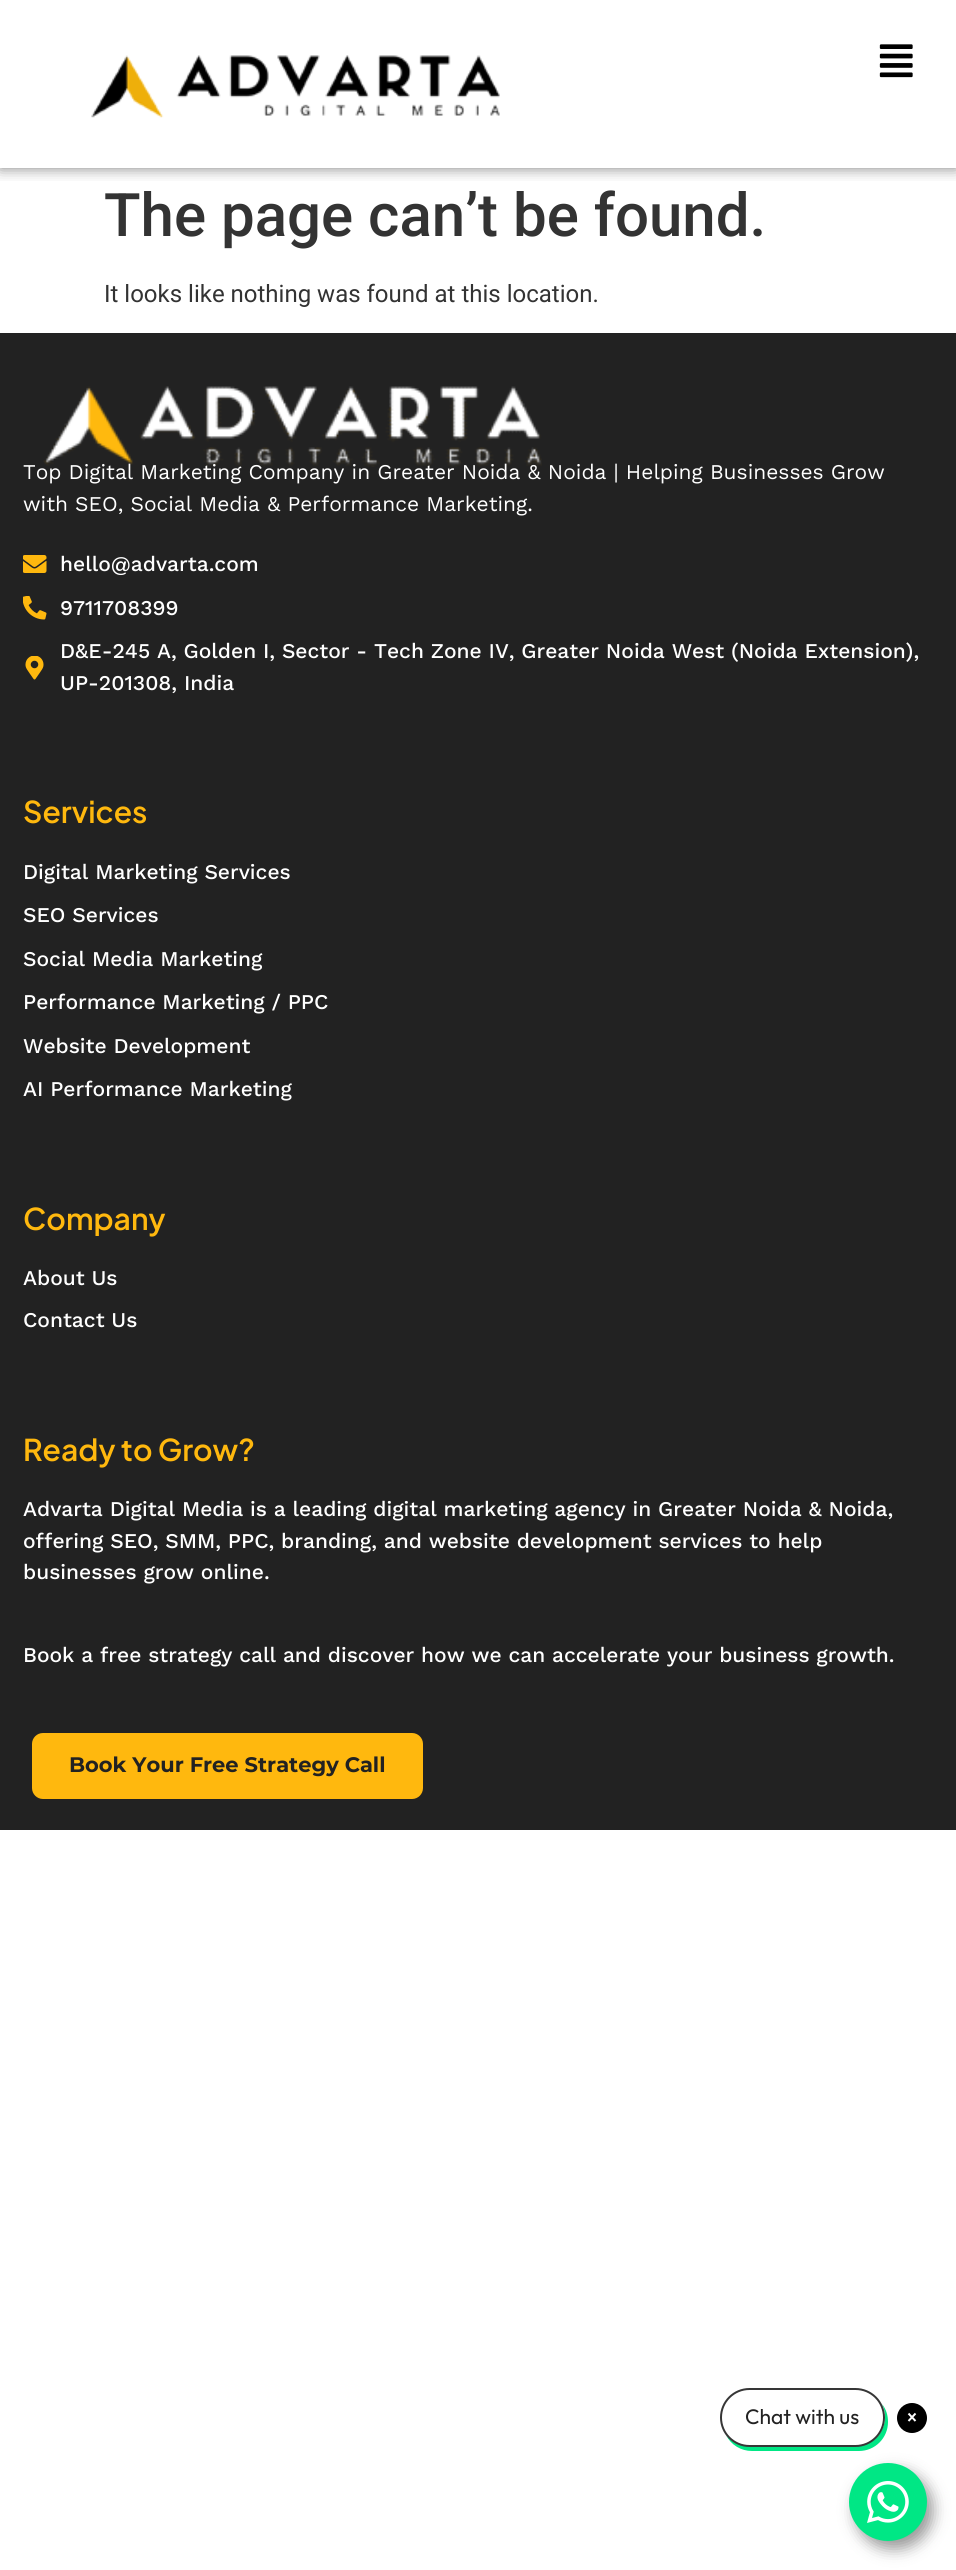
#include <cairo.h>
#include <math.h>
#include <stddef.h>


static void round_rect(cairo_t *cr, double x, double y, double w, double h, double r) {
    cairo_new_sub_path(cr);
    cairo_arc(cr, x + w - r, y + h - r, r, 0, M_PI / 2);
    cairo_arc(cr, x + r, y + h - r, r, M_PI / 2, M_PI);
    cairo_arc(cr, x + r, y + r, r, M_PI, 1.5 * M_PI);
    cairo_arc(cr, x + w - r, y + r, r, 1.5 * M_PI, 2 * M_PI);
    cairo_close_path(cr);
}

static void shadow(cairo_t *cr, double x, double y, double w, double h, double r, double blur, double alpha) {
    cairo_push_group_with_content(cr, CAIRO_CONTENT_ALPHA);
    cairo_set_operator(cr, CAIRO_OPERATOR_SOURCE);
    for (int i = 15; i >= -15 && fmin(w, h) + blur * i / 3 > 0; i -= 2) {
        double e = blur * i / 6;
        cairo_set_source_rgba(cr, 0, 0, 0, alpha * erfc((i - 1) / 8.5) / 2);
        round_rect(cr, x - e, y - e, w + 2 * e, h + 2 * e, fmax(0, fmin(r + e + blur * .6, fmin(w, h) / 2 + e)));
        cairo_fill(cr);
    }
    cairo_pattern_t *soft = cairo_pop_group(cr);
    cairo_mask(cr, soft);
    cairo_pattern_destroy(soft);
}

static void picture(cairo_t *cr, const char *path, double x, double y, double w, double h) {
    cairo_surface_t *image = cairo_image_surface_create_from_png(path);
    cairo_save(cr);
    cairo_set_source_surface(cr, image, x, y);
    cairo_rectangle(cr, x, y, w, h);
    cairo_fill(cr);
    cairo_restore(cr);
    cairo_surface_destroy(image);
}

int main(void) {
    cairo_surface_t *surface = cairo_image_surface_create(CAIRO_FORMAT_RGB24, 956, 2570);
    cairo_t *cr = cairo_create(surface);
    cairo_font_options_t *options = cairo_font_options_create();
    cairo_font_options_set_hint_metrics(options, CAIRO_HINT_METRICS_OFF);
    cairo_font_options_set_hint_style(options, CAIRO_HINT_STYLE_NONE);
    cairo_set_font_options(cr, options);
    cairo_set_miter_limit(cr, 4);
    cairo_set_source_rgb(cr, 1, 1, 1);
    cairo_paint(cr);
    cairo_save(cr);
    cairo_rectangle(cr, 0, 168, 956, 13);
    cairo_clip(cr);
    cairo_set_source_rgb(cr, 0, 0, 0);
    shadow(cr, 0, 0, 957, 168, 0, 7.5, 0.5);
    cairo_restore(cr);
    picture(cr, "img1.png", 91, 55, 409, 63);
    picture(cr, "img2.png", 879, 44, 34, 34);
    cairo_select_font_face(cr, "Roboto Medium", CAIRO_FONT_SLANT_NORMAL, CAIRO_FONT_WEIGHT_NORMAL);
    cairo_set_font_size(cr, 60);
    cairo_set_source_rgb(cr, 0.2, 0.2, 0.2);
    cairo_move_to(cr, 104, 236);
    cairo_show_text(cr, "The page can’t be found.");
    cairo_select_font_face(cr, "Roboto", CAIRO_FONT_SLANT_NORMAL, CAIRO_FONT_WEIGHT_NORMAL);
    cairo_set_font_size(cr, 24);
    cairo_move_to(cr, 104, 302);
    cairo_show_text(cr, "It looks like nothing was found at this location.");
    cairo_set_source_rgb(cr, 0.133, 0.133, 0.133);
    cairo_rectangle(cr, 0, 333, 956, 1497);
    cairo_fill(cr);
    picture(cr, "img3.png", 43, 386, 499, 81);
    cairo_select_font_face(cr, "Work Sans", CAIRO_FONT_SLANT_NORMAL, CAIRO_FONT_WEIGHT_NORMAL);
    cairo_set_font_size(cr, 21);
    cairo_set_source_rgb(cr, 1, 1, 1);
    cairo_move_to(cr, 23, 479);
    cairo_show_text(cr, "Top Digital Marketing Company in Greater Noida & Noida | Helping Businesses Grow");
    cairo_move_to(cr, 23, 511);
    cairo_show_text(cr, "with SEO, Social Media & Performance Marketing.");
    picture(cr, "img4.png", 23, 555, 24, 18);
    cairo_select_font_face(cr, "Work Sans Medium", CAIRO_FONT_SLANT_NORMAL, CAIRO_FONT_WEIGHT_NORMAL);
    cairo_move_to(cr, 60, 571);
    cairo_show_text(cr, "hello@advarta.com");
    picture(cr, "img5.png", 23, 596, 24, 24);
    cairo_move_to(cr, 60, 615);
    cairo_show_text(cr, "9711708399");
    picture(cr, "img6.png", 25, 656, 19, 24);
    cairo_move_to(cr, 60, 658);
    cairo_show_text(cr, "D&E-245 A, Golden I, Sector - Tech Zone IV, Greater Noida West (Noida Extension),");
    cairo_move_to(cr, 60, 690);
    cairo_show_text(cr, "UP-201308, India");
    cairo_select_font_face(cr, "Plus Jakarta Sans SemiBold", CAIRO_FONT_SLANT_NORMAL, CAIRO_FONT_WEIGHT_NORMAL);
    cairo_set_font_size(cr, 30);
    cairo_set_source_rgb(cr, 1, 0.722, 0.055);
    cairo_move_to(cr, 23, 823);
    cairo_show_text(cr, "Services");
    cairo_select_font_face(cr, "Work Sans Medium", CAIRO_FONT_SLANT_NORMAL, CAIRO_FONT_WEIGHT_NORMAL);
    cairo_set_font_size(cr, 21);
    cairo_set_source_rgb(cr, 1, 1, 1);
    cairo_move_to(cr, 23, 879);
    cairo_show_text(cr, "Digital Marketing Services");
    cairo_move_to(cr, 23, 922);
    cairo_show_text(cr, "SEO Services");
    cairo_move_to(cr, 23, 966);
    cairo_show_text(cr, "Social Media Marketing");
    cairo_move_to(cr, 23, 1009);
    cairo_show_text(cr, "Performance Marketing / PPC");
    cairo_move_to(cr, 23, 1053);
    cairo_show_text(cr, "Website Development");
    cairo_move_to(cr, 23, 1096);
    cairo_show_text(cr, "AI Performance Marketing");
    cairo_select_font_face(cr, "Plus Jakarta Sans SemiBold", CAIRO_FONT_SLANT_NORMAL, CAIRO_FONT_WEIGHT_NORMAL);
    cairo_set_font_size(cr, 30);
    cairo_set_source_rgb(cr, 1, 0.722, 0.055);
    cairo_move_to(cr, 23, 1230);
    cairo_show_text(cr, "Company");
    cairo_select_font_face(cr, "Work Sans Medium", CAIRO_FONT_SLANT_NORMAL, CAIRO_FONT_WEIGHT_NORMAL);
    cairo_set_font_size(cr, 21);
    cairo_set_source_rgb(cr, 1, 1, 1);
    cairo_move_to(cr, 23, 1285);
    cairo_show_text(cr, "About Us");
    cairo_move_to(cr, 23, 1327);
    cairo_show_text(cr, "Contact Us");
    cairo_select_font_face(cr, "Plus Jakarta Sans SemiBold", CAIRO_FONT_SLANT_NORMAL, CAIRO_FONT_WEIGHT_NORMAL);
    cairo_set_font_size(cr, 30);
    cairo_set_source_rgb(cr, 1, 0.722, 0.055);
    cairo_move_to(cr, 23, 1461);
    cairo_show_text(cr, "Ready to Grow?");
    cairo_select_font_face(cr, "Work Sans Medium", CAIRO_FONT_SLANT_NORMAL, CAIRO_FONT_WEIGHT_NORMAL);
    cairo_set_font_size(cr, 21);
    cairo_set_source_rgb(cr, 1, 1, 1);
    cairo_move_to(cr, 23, 1516);
    cairo_show_text(cr, "Advarta Digital Media is a leading digital marketing agency in Greater Noida & Noida,");
    cairo_move_to(cr, 23, 1548);
    cairo_show_text(cr, "offering SEO, SMM, PPC, branding, and website development services to help");
    cairo_move_to(cr, 23, 1579);
    cairo_show_text(cr, "businesses grow online.");
    cairo_move_to(cr, 23, 1662);
    cairo_show_text(cr, "Book a free strategy call and discover how we can accelerate your business growth.");
    cairo_set_source_rgb(cr, 1, 0.722, 0.055);
    round_rect(cr, 32, 1733, 391, 66, 11);
    cairo_fill(cr);
    cairo_select_font_face(cr, "Montserrat", CAIRO_FONT_SLANT_NORMAL, CAIRO_FONT_WEIGHT_BOLD);
    cairo_set_source_rgb(cr, 0.133, 0.133, 0.133);
    cairo_move_to(cr, 69, 1772);
    cairo_show_text(cr, "Book Your Free Strategy Call");
    cairo_set_source_rgb(cr, 0, 0, 0);
    shadow(cr, 855, 2471, 78, 78, 39, 7.5, 0.4);
    cairo_set_source_rgb(cr, 0, 0.906, 0.522);
    cairo_new_path(cr);
    cairo_move_to(cr, 726, 2435);
    cairo_curve_to(cr, 731, 2445, 741, 2451, 752, 2451);
    cairo_line_to(cr, 859, 2451);
    cairo_curve_to(cr, 875, 2451, 888, 2438, 888, 2422);
    cairo_curve_to(cr, 888, 2415, 886, 2409, 882, 2404);
    cairo_curve_to(cr, 884, 2408, 885, 2413, 885, 2417);
    cairo_curve_to(cr, 885, 2433, 872, 2446, 856, 2446);
    cairo_line_to(cr, 749, 2446);
    cairo_curve_to(cr, 740, 2446, 732, 2442, 726, 2435);
    cairo_close_path(cr);
    cairo_fill(cr);
    cairo_set_source_rgb(cr, 1, 1, 1);
    round_rect(cr, 721, 2389, 163, 57, 28.5);
    cairo_fill_preserve(cr);
    cairo_set_source_rgb(cr, 0.212, 0.212, 0.212);
    cairo_stroke(cr);
    cairo_select_font_face(cr, "Outfit", CAIRO_FONT_SLANT_NORMAL, CAIRO_FONT_WEIGHT_NORMAL);
    cairo_set_source_rgb(cr, 0.133, 0.133, 0.133);
    cairo_move_to(cr, 745, 2424);
    cairo_show_text(cr, "Chat with us");
    cairo_set_source_rgb(cr, 0, 0, 0);
    cairo_new_path(cr);
    cairo_arc(cr, 912, 2418, 15, 0, 2 * M_PI);
    cairo_fill(cr);
    cairo_new_path(cr);
    cairo_move_to(cr, 908.5, 2413.5);
    cairo_line_to(cr, 915.5, 2421);
    cairo_move_to(cr, 908.5, 2421);
    cairo_line_to(cr, 915.5, 2413.5);
    cairo_set_source_rgb(cr, 1, 1, 1);
    cairo_stroke(cr);
    cairo_set_source_rgb(cr, 0, 0.906, 0.522);
    cairo_arc(cr, 888, 2502, 39, 0, 2 * M_PI);
    cairo_fill(cr);
    picture(cr, "img7.png", 867, 2481, 42, 42);
    cairo_surface_write_to_png(surface, "page.png");
    cairo_font_options_destroy(options);
    cairo_destroy(cr);
    cairo_surface_destroy(surface);
    return 0;
}
